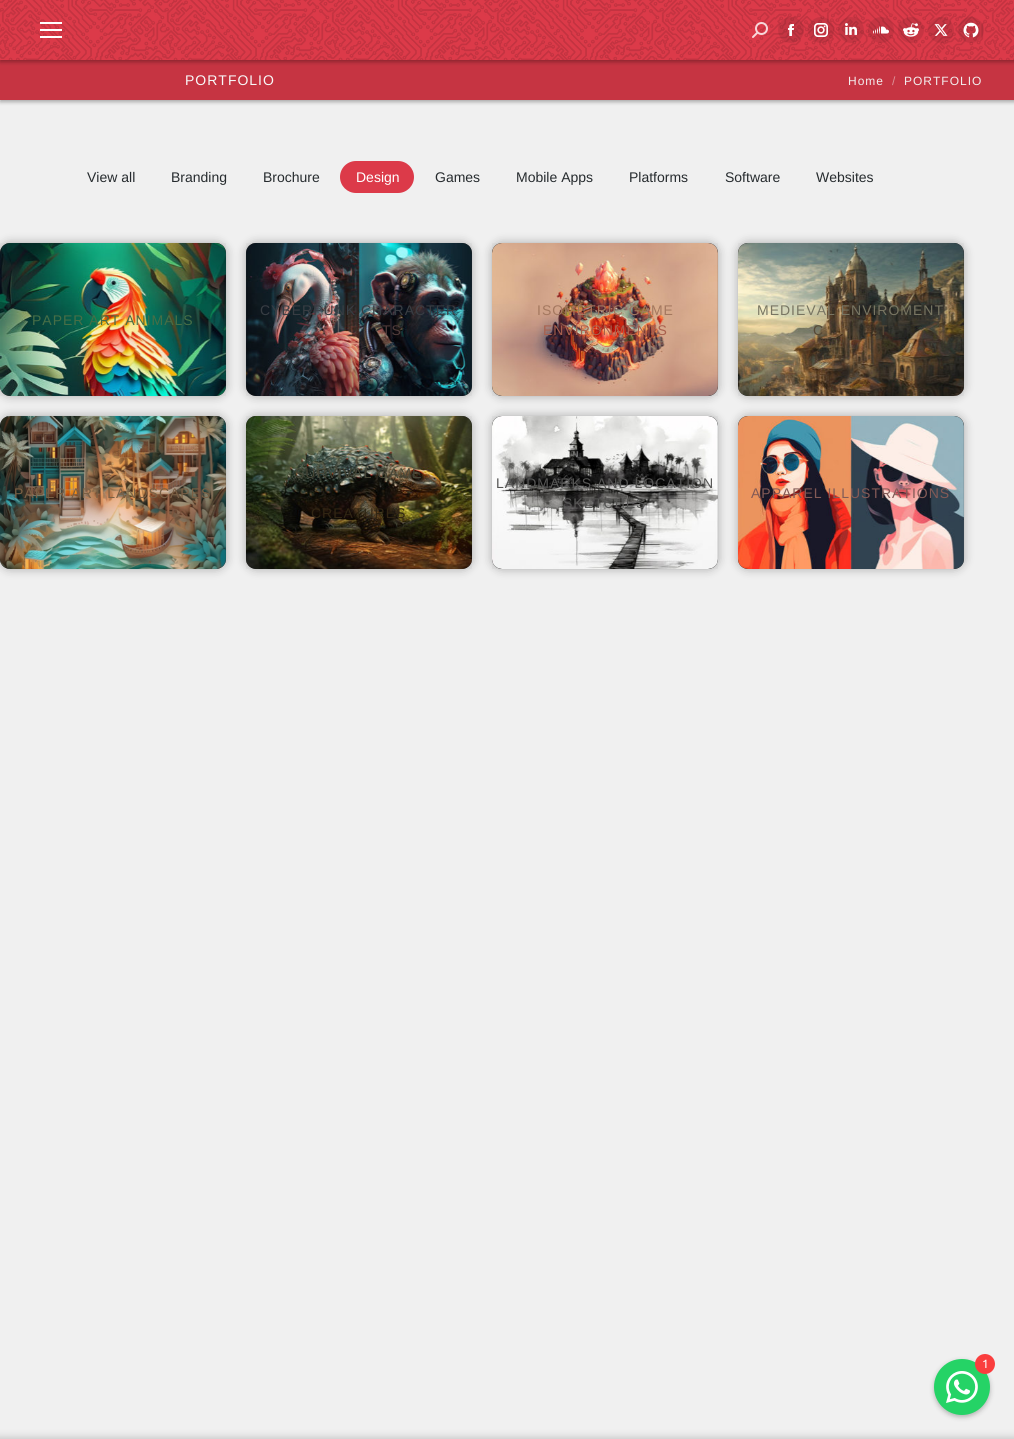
#include <cairo.h>
#include <math.h>
#include <stddef.h>


static void spaced_text(cairo_t *cr, double x, double y, const char *s, double letter, double word) {
    cairo_move_to(cr, x, y);
    while (*s) {
        char ch[5] = {0};
        int n = 0;
        do ch[n++] = *s++; while ((*s & 0xC0) == 0x80);
        cairo_show_text(cr, ch);
        cairo_rel_move_to(cr, letter + word * (*ch == ' '), 0);
    }
}

static void round_rect(cairo_t *cr, double x, double y, double w, double h, double r) {
    cairo_new_sub_path(cr);
    cairo_arc(cr, x + w - r, y + h - r, r, 0, M_PI / 2);
    cairo_arc(cr, x + r, y + h - r, r, M_PI / 2, M_PI);
    cairo_arc(cr, x + r, y + r, r, M_PI, 1.5 * M_PI);
    cairo_arc(cr, x + w - r, y + r, r, 1.5 * M_PI, 2 * M_PI);
    cairo_close_path(cr);
}

static void shadow(cairo_t *cr, double x, double y, double w, double h, double r, double blur, double alpha) {
    cairo_push_group_with_content(cr, CAIRO_CONTENT_ALPHA);
    cairo_set_operator(cr, CAIRO_OPERATOR_SOURCE);
    for (int i = 15; i >= -15 && fmin(w, h) + blur * i / 3 > 0; i -= 2) {
        double e = blur * i / 6;
        cairo_set_source_rgba(cr, 0, 0, 0, alpha * erfc((i - 1) / 8.5) / 2);
        round_rect(cr, x - e, y - e, w + 2 * e, h + 2 * e, fmax(0, fmin(r + e + blur * .6, fmin(w, h) / 2 + e)));
        cairo_fill(cr);
    }
    cairo_pattern_t *soft = cairo_pop_group(cr);
    cairo_mask(cr, soft);
    cairo_pattern_destroy(soft);
}

static void picture(cairo_t *cr, const char *path, double x, double y, double w, double h) {
    cairo_surface_t *image = cairo_image_surface_create_from_png(path);
    cairo_save(cr);
    cairo_set_source_surface(cr, image, x, y);
    cairo_rectangle(cr, x, y, w, h);
    cairo_fill(cr);
    cairo_restore(cr);
    cairo_surface_destroy(image);
}

int main(void) {
    cairo_surface_t *surface = cairo_image_surface_create(CAIRO_FORMAT_RGB24, 1014, 1439);
    cairo_t *cr = cairo_create(surface);
    cairo_font_options_t *options = cairo_font_options_create();
    cairo_font_options_set_hint_metrics(options, CAIRO_HINT_METRICS_OFF);
    cairo_font_options_set_hint_style(options, CAIRO_HINT_STYLE_NONE);
    cairo_set_font_options(cr, options);
    cairo_set_miter_limit(cr, 4);
    cairo_set_source_rgb(cr, 0.941, 0.941, 0.941);
    cairo_paint(cr);
    cairo_set_source_rgb(cr, 0, 0, 0);
    shadow(cr, 0, 60, 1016, 42, 0, 2, 0.3);
    cairo_set_source_rgb(cr, 0.776, 0.204, 0.259);
    cairo_rectangle(cr, 0, 60, 1014, 40);
    cairo_fill(cr);
    cairo_set_source_rgb(cr, 0, 0, 0);
    shadow(cr, 0, 0, 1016, 62, 0, 2, 0.3);
    cairo_set_source_rgb(cr, 0.863, 0.227, 0.286);
    cairo_rectangle(cr, 0, 0, 1014, 60);
    cairo_fill(cr);
    picture(cr, "img1.png", 0, 0, 1014, 60);
    cairo_set_source_rgb(cr, 1, 1, 1);
    cairo_rectangle(cr, 40, 22, 22, 2);
    cairo_fill(cr);
    cairo_rectangle(cr, 40, 29, 22, 2);
    cairo_fill(cr);
    cairo_rectangle(cr, 40, 36, 22, 2);
    cairo_fill(cr);
    picture(cr, "img2.png", 752, 22, 16, 16);
    cairo_set_source_rgba(cr, 0.047, 0.047, 0.047, 0.1);
    cairo_arc(cr, 791, 30, 13, 0, 2 * M_PI);
    cairo_fill(cr);
    picture(cr, "img3.png", 788, 24, 6, 12);
    cairo_arc(cr, 821, 30, 13, 0, 2 * M_PI);
    cairo_fill(cr);
    picture(cr, "img4.png", 814, 23, 14, 14);
    cairo_arc(cr, 851, 30, 13, 0, 2 * M_PI);
    cairo_fill(cr);
    picture(cr, "img5.png", 845, 23, 12, 12);
    cairo_arc(cr, 881, 30, 13, 0, 2 * M_PI);
    cairo_fill(cr);
    picture(cr, "img6.png", 873, 26, 16, 8);
    cairo_arc(cr, 911, 30, 13, 0, 2 * M_PI);
    cairo_fill(cr);
    picture(cr, "img7.png", 903, 23, 16, 14);
    cairo_arc(cr, 941, 30, 13, 0, 2 * M_PI);
    cairo_fill(cr);
    picture(cr, "img8.png", 934, 24, 14, 12);
    cairo_arc(cr, 971, 30, 13, 0, 2 * M_PI);
    cairo_fill(cr);
    picture(cr, "img9.png", 963, 22, 16, 16);
    cairo_select_font_face(cr, "Liberation Sans", CAIRO_FONT_SLANT_NORMAL, CAIRO_FONT_WEIGHT_NORMAL);
    cairo_set_font_size(cr, 14);
    cairo_set_source_rgb(cr, 0.969, 0.969, 0.969);
    spaced_text(cr, 185, 85, "PORTFOLIO", 1, 0);
    cairo_set_font_size(cr, 12);
    cairo_set_source_rgb(cr, 0.949, 0.929, 0.929);
    spaced_text(cr, 848, 85, "Home", 1, 0);
    cairo_set_source_rgb(cr, 0.863, 0.569, 0.596);
    spaced_text(cr, 892, 85, "/", 1, 0);
    cairo_set_source_rgb(cr, 0.949, 0.929, 0.929);
    spaced_text(cr, 904, 85, "PORTFOLIO", 1, 0);
    cairo_set_font_size(cr, 14);
    cairo_set_source_rgb(cr, 0.149, 0.169, 0.18);
    cairo_move_to(cr, 87, 182);
    cairo_show_text(cr, "View all");
    cairo_move_to(cr, 171, 182);
    cairo_show_text(cr, "Branding");
    cairo_move_to(cr, 263, 182);
    cairo_show_text(cr, "Brochure");
    cairo_set_source_rgb(cr, 0.863, 0.227, 0.286);
    round_rect(cr, 340, 161, 74, 32, 16);
    cairo_fill(cr);
    cairo_set_source_rgb(cr, 1, 1, 1);
    cairo_move_to(cr, 356, 182);
    cairo_show_text(cr, "Design");
    cairo_set_source_rgb(cr, 0.149, 0.169, 0.18);
    cairo_move_to(cr, 435, 182);
    cairo_show_text(cr, "Games");
    cairo_move_to(cr, 516, 182);
    cairo_show_text(cr, "Mobile Apps");
    cairo_move_to(cr, 629, 182);
    cairo_show_text(cr, "Platforms");
    cairo_move_to(cr, 725, 182);
    cairo_show_text(cr, "Software");
    cairo_move_to(cr, 816, 182);
    cairo_show_text(cr, "Websites");
    cairo_set_source_rgb(cr, 0, 0, 0);
    shadow(cr, 0, 243, 226, 153, 10, 5, 0.3);
    cairo_set_source_rgb(cr, 0.153, 0.153, 0.153);
    round_rect(cr, 0, 243, 226, 153, 10);
    cairo_fill(cr);
    cairo_set_source_rgba(cr, 0.404, 0.42, 0.427, 0.05);
    cairo_rectangle(cr, 0, 243, 226, 153);
    cairo_fill(cr);
    picture(cr, "img10.png", 0, 243, 226, 153);
    cairo_set_source_rgb(cr, 0.278, 0.431, 0.275);
    spaced_text(cr, 32, 325, "PAPER ART ANIMALS", 1, 0);
    cairo_set_source_rgb(cr, 0, 0, 0);
    shadow(cr, 246, 243, 226, 153, 10, 5, 0.3);
    cairo_set_source_rgb(cr, 0.153, 0.153, 0.153);
    round_rect(cr, 246, 243, 226, 153, 10);
    cairo_fill(cr);
    cairo_set_source_rgba(cr, 0.404, 0.42, 0.427, 0.05);
    cairo_rectangle(cr, 246, 243, 226, 153);
    cairo_fill(cr);
    picture(cr, "img11.png", 246, 243, 226, 153);
    cairo_set_source_rgb(cr, 0.22, 0.239, 0.263);
    spaced_text(cr, 260, 315, "CYBERPUNK CHARACTER", 1, 0);
    cairo_set_source_rgb(cr, 0.314, 0.231, 0.227);
    spaced_text(cr, 382, 335, "TS", 1, 0);
    cairo_set_source_rgb(cr, 0, 0, 0);
    shadow(cr, 492, 243, 226, 153, 10, 5, 0.3);
    cairo_set_source_rgb(cr, 0.153, 0.153, 0.153);
    round_rect(cr, 492, 243, 226, 153, 10);
    cairo_fill(cr);
    cairo_set_source_rgba(cr, 0.404, 0.42, 0.427, 0.05);
    cairo_rectangle(cr, 492, 243, 226, 153);
    cairo_fill(cr);
    picture(cr, "img12.png", 492, 243, 226, 153);
    cairo_set_source_rgb(cr, 0.643, 0.471, 0.373);
    spaced_text(cr, 537, 315, "ISOMETRIC GAME", 1, 0);
    cairo_set_source_rgb(cr, 0.663, 0.376, 0.302);
    spaced_text(cr, 543, 335, "ENVIRONMENTS", 1, 0);
    cairo_set_source_rgb(cr, 0, 0, 0);
    shadow(cr, 738, 243, 226, 153, 10, 5, 0.3);
    cairo_set_source_rgb(cr, 0.153, 0.153, 0.153);
    round_rect(cr, 738, 243, 226, 153, 10);
    cairo_fill(cr);
    cairo_set_source_rgba(cr, 0.404, 0.42, 0.427, 0.05);
    cairo_rectangle(cr, 738, 243, 226, 153);
    cairo_fill(cr);
    picture(cr, "img13.png", 738, 243, 226, 153);
    cairo_set_source_rgb(cr, 0.471, 0.459, 0.384);
    spaced_text(cr, 757, 315, "MEDIEVAL ENVIROMENT", 1, 0);
    cairo_set_source_rgb(cr, 0.341, 0.286, 0.212);
    spaced_text(cr, 813, 335, "C", 1, 0);
    spaced_text(cr, 879, 335, "T", 1, 0);
    cairo_set_source_rgb(cr, 0, 0, 0);
    shadow(cr, 0, 416, 226, 153, 10, 5, 0.3);
    cairo_set_source_rgb(cr, 0.153, 0.153, 0.153);
    round_rect(cr, 0, 416, 226, 153, 10);
    cairo_fill(cr);
    picture(cr, "img14.png", 0, 416, 226, 153);
    cairo_set_source_rgb(cr, 0.478, 0.376, 0.271);
    spaced_text(cr, 14, 498, "PAPER ART LANDSCAPES", 1, 0);
    cairo_set_source_rgb(cr, 0, 0, 0);
    shadow(cr, 246, 416, 226, 153, 10, 5, 0.3);
    cairo_set_source_rgb(cr, 0.153, 0.153, 0.153);
    round_rect(cr, 246, 416, 226, 153, 10);
    cairo_fill(cr);
    cairo_set_source_rgba(cr, 0.404, 0.42, 0.427, 0.05);
    cairo_rectangle(cr, 246, 416, 226, 153);
    cairo_fill(cr);
    picture(cr, "img15.png", 246, 416, 226, 153);
    cairo_set_source_rgb(cr, 0.278, 0.275, 0.216);
    spaced_text(cr, 295, 478, "SURVIVAL GAME", 1, 0);
    cairo_set_source_rgb(cr, 0.188, 0.145, 0.075);
    spaced_text(cr, 311, 518, "CREATURES", 1, 0);
    cairo_set_source_rgb(cr, 0, 0, 0);
    shadow(cr, 492, 416, 226, 153, 10, 5, 0.3);
    cairo_set_source_rgb(cr, 0.153, 0.153, 0.153);
    round_rect(cr, 492, 416, 226, 153, 10);
    cairo_fill(cr);
    cairo_set_source_rgba(cr, 0.404, 0.42, 0.427, 0.05);
    cairo_rectangle(cr, 492, 416, 226, 153);
    cairo_fill(cr);
    picture(cr, "img16.png", 492, 416, 226, 153);
    cairo_set_source_rgb(cr, 0.337, 0.337, 0.333);
    spaced_text(cr, 496, 488, "LANDMARKS AND LOCATION", 1, 0);
    spaced_text(cr, 563, 508, "SKETCHES", 1, 0);
    cairo_set_source_rgb(cr, 0, 0, 0);
    shadow(cr, 738, 416, 226, 153, 10, 5, 0.3);
    cairo_set_source_rgb(cr, 0.153, 0.153, 0.153);
    round_rect(cr, 738, 416, 226, 153, 10);
    cairo_fill(cr);
    picture(cr, "img17.png", 738, 416, 226, 153);
    cairo_set_source_rgb(cr, 0.514, 0.353, 0.337);
    spaced_text(cr, 751, 498, "APPAREL ILLUSTRATIONS", 1, 0);
    cairo_set_source_rgb(cr, 0, 0, 0);
    shadow(cr, -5, 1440, 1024, 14, 0, 5, 0.3);
    shadow(cr, 934, 1361, 56, 56, 28, 2.5, 0.26);
    cairo_set_source_rgb(cr, 0.145, 0.827, 0.4);
    cairo_arc(cr, 962, 1387, 28, 0, 2 * M_PI);
    cairo_fill(cr);
    picture(cr, "img18.png", 946, 1371, 32, 32);
    cairo_set_source_rgb(cr, 0.98, 0.243, 0.243);
    cairo_arc(cr, 985, 1364, 10, 0, 2 * M_PI);
    cairo_fill(cr);
    cairo_select_font_face(cr, "Ubuntu", CAIRO_FONT_SLANT_NORMAL, CAIRO_FONT_WEIGHT_NORMAL);
    cairo_set_font_size(cr, 12);
    cairo_set_source_rgb(cr, 1, 1, 1);
    cairo_move_to(cr, 982, 1368);
    cairo_show_text(cr, "1");
    cairo_surface_write_to_png(surface, "page.png");
    cairo_font_options_destroy(options);
    cairo_destroy(cr);
    cairo_surface_destroy(surface);
    return 0;
}
